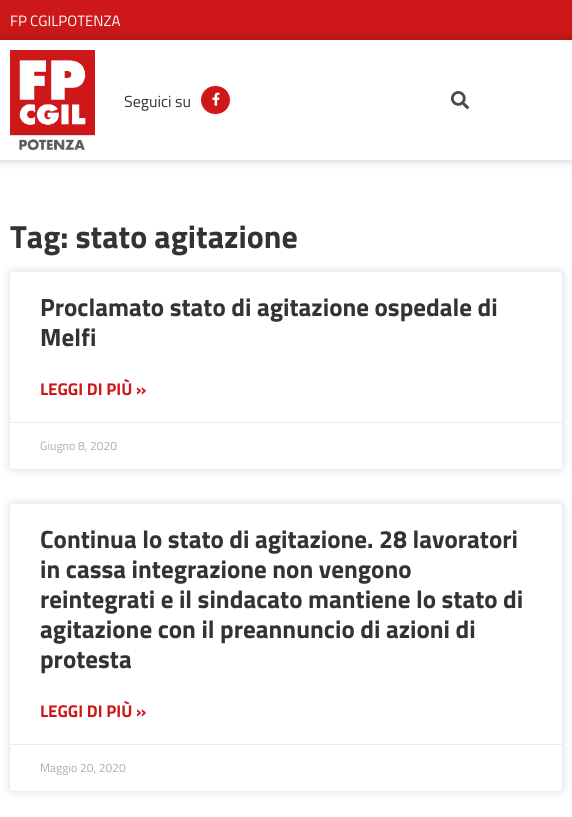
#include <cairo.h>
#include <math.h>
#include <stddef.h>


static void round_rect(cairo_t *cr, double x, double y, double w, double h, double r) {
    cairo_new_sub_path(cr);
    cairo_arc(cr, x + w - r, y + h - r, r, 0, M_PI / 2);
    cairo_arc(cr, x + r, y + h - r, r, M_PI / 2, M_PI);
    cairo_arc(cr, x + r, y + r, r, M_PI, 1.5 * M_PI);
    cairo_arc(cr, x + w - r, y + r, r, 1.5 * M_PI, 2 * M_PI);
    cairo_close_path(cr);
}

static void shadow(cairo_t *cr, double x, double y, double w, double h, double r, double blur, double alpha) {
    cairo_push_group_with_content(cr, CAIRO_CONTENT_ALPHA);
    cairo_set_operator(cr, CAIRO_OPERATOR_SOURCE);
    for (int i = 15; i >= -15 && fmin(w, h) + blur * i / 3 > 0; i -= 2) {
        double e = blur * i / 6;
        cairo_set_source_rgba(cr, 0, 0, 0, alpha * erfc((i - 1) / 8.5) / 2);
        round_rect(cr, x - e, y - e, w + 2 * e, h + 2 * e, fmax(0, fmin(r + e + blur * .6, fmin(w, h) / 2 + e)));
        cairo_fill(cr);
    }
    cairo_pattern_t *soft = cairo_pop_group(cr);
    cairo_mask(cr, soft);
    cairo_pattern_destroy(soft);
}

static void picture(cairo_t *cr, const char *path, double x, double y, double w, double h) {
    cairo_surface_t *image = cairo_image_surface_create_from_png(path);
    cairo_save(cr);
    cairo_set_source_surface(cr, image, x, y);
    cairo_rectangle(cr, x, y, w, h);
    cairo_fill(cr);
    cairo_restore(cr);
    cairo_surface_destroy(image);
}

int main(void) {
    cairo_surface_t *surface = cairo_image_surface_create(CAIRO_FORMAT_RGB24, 572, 817);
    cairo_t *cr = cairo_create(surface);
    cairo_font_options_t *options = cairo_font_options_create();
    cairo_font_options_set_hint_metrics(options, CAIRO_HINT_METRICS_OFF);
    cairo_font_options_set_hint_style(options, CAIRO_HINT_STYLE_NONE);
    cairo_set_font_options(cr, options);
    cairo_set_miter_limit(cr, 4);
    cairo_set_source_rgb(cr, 1, 1, 1);
    cairo_paint(cr);
    cairo_set_source_rgb(cr, 0.804, 0.09, 0.098);
    cairo_rectangle(cr, 0, 0, 572, 40);
    cairo_fill(cr);
    cairo_select_font_face(cr, "Titillium Web", CAIRO_FONT_SLANT_NORMAL, CAIRO_FONT_WEIGHT_NORMAL);
    cairo_set_font_size(cr, 15);
    cairo_set_source_rgb(cr, 1, 1, 1);
    cairo_move_to(cr, 10, 26);
    cairo_show_text(cr, "FP CGILPOTENZA");
    cairo_save(cr);
    cairo_set_fill_rule(cr, CAIRO_FILL_RULE_EVEN_ODD);
    cairo_new_path(cr);
    cairo_move_to(cr, 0, 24);
    cairo_line_to(cr, 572, 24);
    cairo_line_to(cr, 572, 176);
    cairo_line_to(cr, 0, 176);
    cairo_close_path(cr);
    cairo_move_to(cr, 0, 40);
    cairo_line_to(cr, 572, 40);
    cairo_line_to(cr, 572, 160);
    cairo_line_to(cr, 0, 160);
    cairo_close_path(cr);
    cairo_clip(cr);
    cairo_set_source_rgb(cr, 0, 0, 0);
    shadow(cr, 0, 40, 572, 120, 0, 5, 0.22);
    cairo_restore(cr);
    picture(cr, "img1.png", 10, 50, 85, 100);
    cairo_set_font_size(cr, 16);
    cairo_set_source_rgb(cr, 0.2, 0.2, 0.2);
    cairo_move_to(cr, 124, 107);
    cairo_show_text(cr, "Seguici su");
    cairo_set_source_rgb(cr, 0.804, 0.09, 0.098);
    round_rect(cr, 201, 86, 29, 28, 14);
    cairo_fill(cr);
    picture(cr, "img2.png", 212, 92, 8, 14);
    picture(cr, "img3.png", 450, 91, 19, 19);
    cairo_select_font_face(cr, "Titillium Web", CAIRO_FONT_SLANT_NORMAL, CAIRO_FONT_WEIGHT_BOLD);
    cairo_set_font_size(cr, 32);
    cairo_set_source_rgb(cr, 0.2, 0.2, 0.2);
    cairo_move_to(cr, 10, 248);
    cairo_show_text(cr, "Tag: stato agitazione");
    cairo_set_source_rgb(cr, 0, 0, 0);
    shadow(cr, 10, 272, 552, 197, 3, 5, 0.15);
    cairo_set_source_rgb(cr, 1, 1, 1);
    round_rect(cr, 10, 272, 552, 197, 3);
    cairo_fill(cr);
    cairo_set_font_size(cr, 25);
    cairo_set_source_rgb(cr, 0.2, 0.2, 0.2);
    cairo_move_to(cr, 40, 316);
    cairo_show_text(cr, "Proclamato stato di agitazione ospedale di");
    cairo_move_to(cr, 40, 346);
    cairo_show_text(cr, "Melfi");
    cairo_set_font_size(cr, 17);
    cairo_set_source_rgb(cr, 0.804, 0.09, 0.098);
    cairo_move_to(cr, 40, 395);
    cairo_show_text(cr, "LEGGI DI PIÙ »");
    cairo_set_source_rgb(cr, 0.918, 0.918, 0.918);
    cairo_rectangle(cr, 10, 422, 552, 1);
    cairo_fill(cr);
    cairo_select_font_face(cr, "Titillium Web", CAIRO_FONT_SLANT_NORMAL, CAIRO_FONT_WEIGHT_NORMAL);
    cairo_set_font_size(cr, 12);
    cairo_set_source_rgb(cr, 0.678, 0.678, 0.678);
    cairo_move_to(cr, 40, 450);
    cairo_show_text(cr, "Giugno 8, 2020");
    cairo_set_source_rgb(cr, 0, 0, 0);
    shadow(cr, 10, 504, 552, 287, 3, 5, 0.15);
    cairo_set_source_rgb(cr, 1, 1, 1);
    round_rect(cr, 10, 504, 552, 287, 3);
    cairo_fill(cr);
    cairo_select_font_face(cr, "Titillium Web", CAIRO_FONT_SLANT_NORMAL, CAIRO_FONT_WEIGHT_BOLD);
    cairo_set_font_size(cr, 25);
    cairo_set_source_rgb(cr, 0.2, 0.2, 0.2);
    cairo_move_to(cr, 40, 548);
    cairo_show_text(cr, "Continua lo stato di agitazione. 28 lavoratori");
    cairo_move_to(cr, 40, 578);
    cairo_show_text(cr, "in cassa integrazione non vengono");
    cairo_move_to(cr, 40, 608);
    cairo_show_text(cr, "reintegrati e il sindacato mantiene lo stato di");
    cairo_move_to(cr, 40, 638);
    cairo_show_text(cr, "agitazione con il preannuncio di azioni di");
    cairo_move_to(cr, 40, 668);
    cairo_show_text(cr, "protesta");
    cairo_set_font_size(cr, 17);
    cairo_set_source_rgb(cr, 0.804, 0.09, 0.098);
    cairo_move_to(cr, 40, 717);
    cairo_show_text(cr, "LEGGI DI PIÙ »");
    cairo_set_source_rgb(cr, 0.918, 0.918, 0.918);
    cairo_rectangle(cr, 10, 744, 552, 1);
    cairo_fill(cr);
    cairo_select_font_face(cr, "Titillium Web", CAIRO_FONT_SLANT_NORMAL, CAIRO_FONT_WEIGHT_NORMAL);
    cairo_set_font_size(cr, 12);
    cairo_set_source_rgb(cr, 0.678, 0.678, 0.678);
    cairo_move_to(cr, 40, 772);
    cairo_show_text(cr, "Maggio 20, 2020");
    cairo_surface_write_to_png(surface, "page.png");
    cairo_font_options_destroy(options);
    cairo_destroy(cr);
    cairo_surface_destroy(surface);
    return 0;
}
